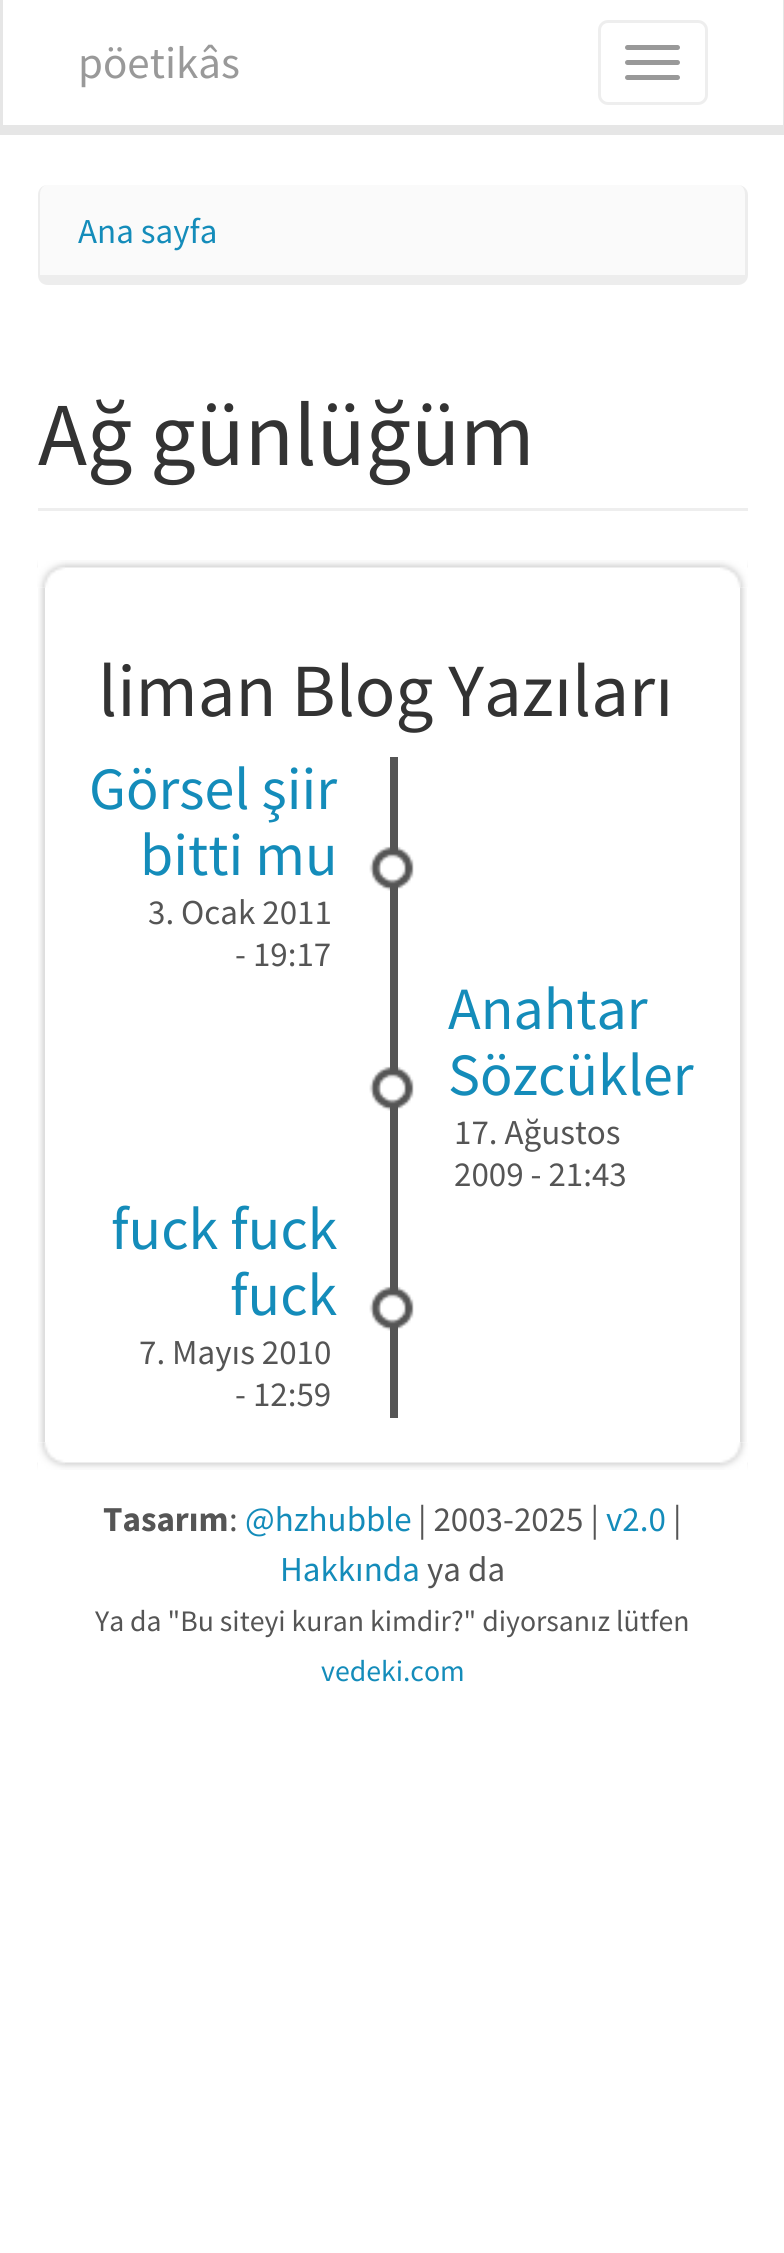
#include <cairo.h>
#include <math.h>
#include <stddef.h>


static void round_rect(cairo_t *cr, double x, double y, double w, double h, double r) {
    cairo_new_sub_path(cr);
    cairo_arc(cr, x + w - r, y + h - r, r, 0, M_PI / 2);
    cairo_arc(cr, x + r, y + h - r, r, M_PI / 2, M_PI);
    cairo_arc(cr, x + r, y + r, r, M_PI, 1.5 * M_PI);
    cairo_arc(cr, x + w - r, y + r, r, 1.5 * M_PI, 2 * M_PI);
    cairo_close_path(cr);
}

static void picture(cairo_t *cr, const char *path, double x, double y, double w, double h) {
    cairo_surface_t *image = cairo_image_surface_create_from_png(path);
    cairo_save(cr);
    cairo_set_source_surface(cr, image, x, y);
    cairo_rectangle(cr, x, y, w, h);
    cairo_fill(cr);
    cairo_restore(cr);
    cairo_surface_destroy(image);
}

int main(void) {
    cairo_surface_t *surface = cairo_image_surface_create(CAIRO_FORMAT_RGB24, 784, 2253);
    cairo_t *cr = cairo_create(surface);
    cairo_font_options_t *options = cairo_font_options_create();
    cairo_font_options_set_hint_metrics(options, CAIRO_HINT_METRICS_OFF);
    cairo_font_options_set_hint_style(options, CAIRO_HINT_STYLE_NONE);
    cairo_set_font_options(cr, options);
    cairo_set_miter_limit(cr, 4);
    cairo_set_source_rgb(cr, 1, 1, 1);
    cairo_paint(cr);
    cairo_set_source_rgb(cr, 0.902, 0.902, 0.902);
    cairo_rectangle(cr, 783, 0, 1, 125);
    cairo_fill(cr);
    cairo_rectangle(cr, 3, 125, 781, 10);
    cairo_fill(cr);
    cairo_rectangle(cr, 0, 0, 3, 135);
    cairo_fill(cr);
    cairo_select_font_face(cr, "Source Sans Pro", CAIRO_FONT_SLANT_NORMAL, CAIRO_FONT_WEIGHT_NORMAL);
    cairo_set_font_size(cr, 45);
    cairo_set_source_rgb(cr, 0.6, 0.6, 0.6);
    cairo_move_to(cr, 78, 78);
    cairo_show_text(cr, "pöetikâs");
    round_rect(cr, 599.5, 21.5, 107, 82, 8.5);
    cairo_set_source_rgb(cr, 0.933, 0.933, 0.933);
    cairo_set_line_width(cr, 3);
    cairo_stroke(cr);
    cairo_set_source_rgb(cr, 0.6, 0.6, 0.6);
    round_rect(cr, 625, 45, 55, 5, 2.5);
    cairo_fill(cr);
    round_rect(cr, 625, 60, 55, 5, 2.5);
    cairo_fill(cr);
    round_rect(cr, 625, 75, 55, 5, 2.5);
    cairo_fill(cr);
    cairo_set_source_rgb(cr, 0.98, 0.98, 0.98);
    cairo_new_path(cr);
    cairo_move_to(cr, 48, 185);
    cairo_line_to(cr, 738, 185);
    cairo_curve_to(cr, 742, 185, 745, 189, 745, 195);
    cairo_line_to(cr, 745, 275);
    cairo_line_to(cr, 40, 275);
    cairo_line_to(cr, 40, 195);
    cairo_curve_to(cr, 40, 189, 43, 185, 48, 185);
    cairo_close_path(cr);
    cairo_fill(cr);
    cairo_set_source_rgb(cr, 0.929, 0.929, 0.929);
    cairo_set_fill_rule(cr, CAIRO_FILL_RULE_EVEN_ODD);
    cairo_new_path(cr);
    cairo_move_to(cr, 48, 185);
    cairo_line_to(cr, 738, 185);
    cairo_curve_to(cr, 743, 185, 748, 189, 748, 195);
    cairo_line_to(cr, 748, 275);
    cairo_curve_to(cr, 748, 281, 743, 285, 738, 285);
    cairo_line_to(cr, 48, 285);
    cairo_curve_to(cr, 42, 285, 38, 281, 38, 275);
    cairo_line_to(cr, 38, 195);
    cairo_curve_to(cr, 38, 189, 42, 185, 48, 185);
    cairo_close_path(cr);
    cairo_move_to(cr, 48, 185);
    cairo_line_to(cr, 738, 185);
    cairo_curve_to(cr, 742, 185, 745, 189, 745, 195);
    cairo_line_to(cr, 745, 275);
    cairo_line_to(cr, 40, 275);
    cairo_line_to(cr, 40, 195);
    cairo_curve_to(cr, 40, 189, 43, 185, 48, 185);
    cairo_close_path(cr);
    cairo_fill(cr);
    cairo_set_font_size(cr, 35);
    cairo_set_source_rgb(cr, 0.082, 0.549, 0.729);
    cairo_move_to(cr, 78, 243);
    cairo_show_text(cr, "Ana sayfa");
    cairo_set_source_rgb(cr, 0.933, 0.933, 0.933);
    cairo_rectangle(cr, 38, 508, 710, 3);
    cairo_fill(cr);
    cairo_set_font_size(cr, 90);
    cairo_set_source_rgb(cr, 0.2, 0.2, 0.2);
    cairo_move_to(cr, 38, 465);
    cairo_show_text(cr, "Ağ günlüğüm");
    picture(cr, "img1.png", 37, 560, 711, 8);
    picture(cr, "img2.png", 37, 560, 28, 28);
    picture(cr, "img3.png", 720, 560, 28, 28);
    picture(cr, "img4.png", 38, 587, 7, 856);
    picture(cr, "img5.png", 740, 587, 7, 856);
    cairo_set_font_size(cr, 75);
    cairo_move_to(cr, 98, 716);
    cairo_show_text(cr, "liman Blog Yazıları");
    cairo_set_source_rgb(cr, 0.333, 0.333, 0.333);
    cairo_rectangle(cr, 390, 757, 8, 661);
    cairo_fill(cr);
    picture(cr, "img6.png", 369, 846, 45, 45);
    cairo_set_font_size(cr, 60);
    cairo_set_source_rgb(cr, 0.082, 0.549, 0.729);
    cairo_move_to(cr, 89, 809);
    cairo_show_text(cr, "Görsel şiir");
    cairo_move_to(cr, 140, 875);
    cairo_show_text(cr, "bitti mu");
    cairo_set_font_size(cr, 35);
    cairo_set_source_rgb(cr, 0.333, 0.333, 0.333);
    cairo_move_to(cr, 148, 924);
    cairo_show_text(cr, "3. Ocak 2011");
    cairo_move_to(cr, 235, 966);
    cairo_show_text(cr, "- 19:17");
    picture(cr, "img6.png", 369, 1066, 45, 45);
    cairo_set_font_size(cr, 60);
    cairo_set_source_rgb(cr, 0.082, 0.549, 0.729);
    cairo_move_to(cr, 448, 1029);
    cairo_show_text(cr, "Anahtar");
    cairo_move_to(cr, 448, 1095);
    cairo_show_text(cr, "Sözcükler");
    cairo_set_font_size(cr, 35);
    cairo_set_source_rgb(cr, 0.333, 0.333, 0.333);
    cairo_move_to(cr, 454, 1144);
    cairo_show_text(cr, "17. Ağustos");
    cairo_move_to(cr, 454, 1186);
    cairo_show_text(cr, "2009 - 21:43");
    picture(cr, "img6.png", 369, 1286, 45, 45);
    cairo_set_font_size(cr, 60);
    cairo_set_source_rgb(cr, 0.082, 0.549, 0.729);
    cairo_move_to(cr, 111, 1249);
    cairo_show_text(cr, "fuck fuck");
    cairo_move_to(cr, 230, 1315);
    cairo_show_text(cr, "fuck");
    cairo_set_font_size(cr, 35);
    cairo_set_source_rgb(cr, 0.333, 0.333, 0.333);
    cairo_move_to(cr, 139, 1364);
    cairo_show_text(cr, "7. Mayıs 2010");
    cairo_move_to(cr, 235, 1406);
    cairo_show_text(cr, "- 12:59");
    picture(cr, "img7.png", 37, 1462, 711, 8);
    picture(cr, "img8.png", 37, 1442, 28, 28);
    picture(cr, "img9.png", 720, 1442, 28, 28);
    cairo_select_font_face(cr, "Source Sans Pro", CAIRO_FONT_SLANT_NORMAL, CAIRO_FONT_WEIGHT_BOLD);
    cairo_move_to(cr, 103, 1531);
    cairo_show_text(cr, "Tasarım");
    cairo_select_font_face(cr, "Source Sans Pro", CAIRO_FONT_SLANT_NORMAL, CAIRO_FONT_WEIGHT_NORMAL);
    cairo_move_to(cr, 229, 1531);
    cairo_show_text(cr, ":");
    cairo_set_source_rgb(cr, 0.082, 0.549, 0.729);
    cairo_move_to(cr, 245, 1531);
    cairo_show_text(cr, "@hzhubble");
    cairo_set_source_rgb(cr, 0.333, 0.333, 0.333);
    cairo_move_to(cr, 418, 1531);
    cairo_show_text(cr, "| 2003-2025 |");
    cairo_set_source_rgb(cr, 0.082, 0.549, 0.729);
    cairo_move_to(cr, 606, 1531);
    cairo_show_text(cr, "v2.0");
    cairo_set_source_rgb(cr, 0.333, 0.333, 0.333);
    cairo_move_to(cr, 673, 1531);
    cairo_show_text(cr, "|");
    cairo_set_source_rgb(cr, 0.082, 0.549, 0.729);
    cairo_move_to(cr, 280, 1581);
    cairo_show_text(cr, "Hakkında");
    cairo_set_source_rgb(cr, 0.333, 0.333, 0.333);
    cairo_move_to(cr, 427, 1581);
    cairo_show_text(cr, "ya da");
    cairo_set_font_size(cr, 29.75);
    cairo_move_to(cr, 95, 1631);
    cairo_show_text(cr, "Ya da \"Bu siteyi kuran kimdir?\" diyorsanız lütfen");
    cairo_set_source_rgb(cr, 0.082, 0.549, 0.729);
    cairo_move_to(cr, 321, 1681);
    cairo_show_text(cr, "vedeki.com");
    cairo_surface_write_to_png(surface, "page.png");
    cairo_font_options_destroy(options);
    cairo_destroy(cr);
    cairo_surface_destroy(surface);
    return 0;
}
